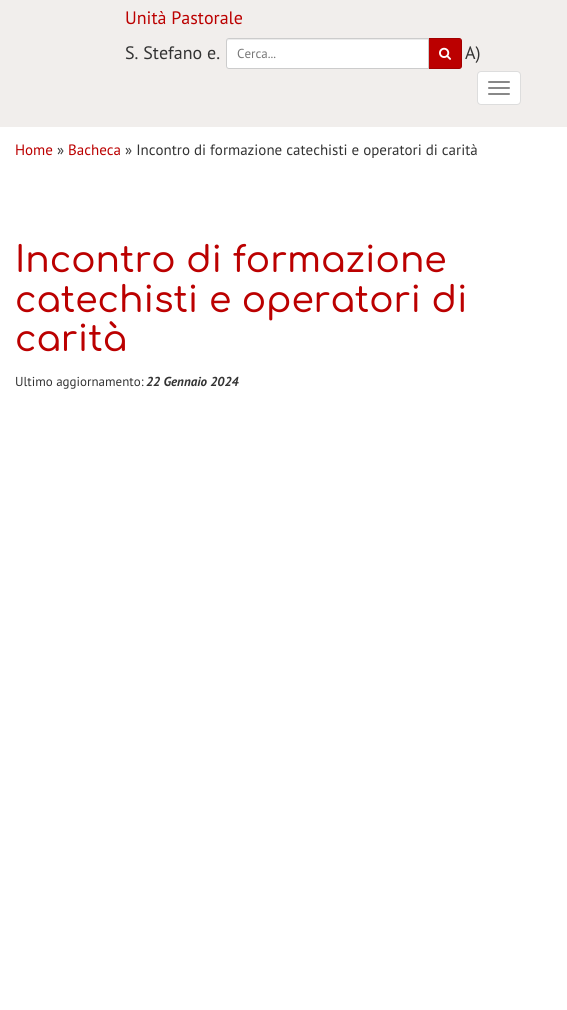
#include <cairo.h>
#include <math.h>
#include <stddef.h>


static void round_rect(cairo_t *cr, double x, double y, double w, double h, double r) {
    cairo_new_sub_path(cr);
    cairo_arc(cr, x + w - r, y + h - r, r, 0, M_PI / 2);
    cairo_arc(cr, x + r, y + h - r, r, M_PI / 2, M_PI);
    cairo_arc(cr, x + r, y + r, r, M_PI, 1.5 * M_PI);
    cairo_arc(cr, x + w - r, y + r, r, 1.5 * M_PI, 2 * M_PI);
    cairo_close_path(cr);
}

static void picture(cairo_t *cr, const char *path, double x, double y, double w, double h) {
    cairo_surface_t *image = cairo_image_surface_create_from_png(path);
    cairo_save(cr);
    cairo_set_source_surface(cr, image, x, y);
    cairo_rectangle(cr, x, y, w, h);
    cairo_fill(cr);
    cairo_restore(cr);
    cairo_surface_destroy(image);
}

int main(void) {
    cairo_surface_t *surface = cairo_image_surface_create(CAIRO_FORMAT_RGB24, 567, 1010);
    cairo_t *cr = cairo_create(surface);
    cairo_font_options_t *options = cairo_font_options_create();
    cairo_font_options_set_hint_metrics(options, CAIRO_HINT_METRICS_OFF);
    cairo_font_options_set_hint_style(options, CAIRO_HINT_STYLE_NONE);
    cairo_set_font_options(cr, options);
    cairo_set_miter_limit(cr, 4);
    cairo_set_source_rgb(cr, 1, 1, 1);
    cairo_paint(cr);
    cairo_set_source_rgb(cr, 0.945, 0.933, 0.922);
    cairo_rectangle(cr, 0, 0, 567, 127);
    cairo_fill(cr);
    cairo_select_font_face(cr, "PT Sans", CAIRO_FONT_SLANT_NORMAL, CAIRO_FONT_WEIGHT_NORMAL);
    cairo_set_font_size(cr, 18);
    cairo_set_source_rgb(cr, 0.733, 0, 0);
    cairo_move_to(cr, 125, 24);
    cairo_show_text(cr, "Unità Pastorale");
    cairo_set_source_rgb(cr, 0.2, 0.2, 0.2);
    cairo_move_to(cr, 125, 59);
    cairo_show_text(cr, "S. Stefano e.");
    cairo_move_to(cr, 465, 59);
    cairo_show_text(cr, "A)");
    cairo_set_source_rgb(cr, 0.733, 0, 0);
    cairo_new_path(cr);
    cairo_move_to(cr, 428.5, 38.5);
    cairo_line_to(cr, 459, 38.5);
    cairo_curve_to(cr, 460.5, 38.5, 461.5, 39.5, 461.5, 41);
    cairo_line_to(cr, 461.5, 66);
    cairo_curve_to(cr, 461.5, 67.5, 460.5, 68.5, 459, 68.5);
    cairo_line_to(cr, 428.5, 68.5);
    cairo_close_path(cr);
    cairo_fill_preserve(cr);
    cairo_set_source_rgb(cr, 0.635, 0, 0);
    cairo_set_line_width(cr, 1);
    cairo_stroke(cr);
    cairo_set_source_rgb(cr, 1, 1, 1);
    cairo_new_path(cr);
    cairo_move_to(cr, 229, 38);
    cairo_line_to(cr, 429, 38);
    cairo_line_to(cr, 429, 69);
    cairo_line_to(cr, 229, 69);
    cairo_curve_to(cr, 227.5, 69, 226, 67.5, 226, 66);
    cairo_line_to(cr, 226, 41);
    cairo_curve_to(cr, 226, 39.5, 227.5, 38, 229, 38);
    cairo_close_path(cr);
    cairo_fill(cr);
    cairo_set_source_rgb(cr, 0.925, 0.925, 0.925);
    cairo_new_path(cr);
    cairo_move_to(cr, 229, 40);
    cairo_line_to(cr, 428, 40);
    cairo_line_to(cr, 428, 39);
    cairo_line_to(cr, 229, 39);
    cairo_curve_to(cr, 227, 39, 227, 41, 227, 42);
    cairo_curve_to(cr, 227, 41, 228, 40, 229, 40);
    cairo_close_path(cr);
    cairo_fill(cr);
    cairo_new_path(cr);
    cairo_move_to(cr, 229, 38.5);
    cairo_line_to(cr, 428.5, 38.5);
    cairo_line_to(cr, 428.5, 68.5);
    cairo_line_to(cr, 229, 68.5);
    cairo_curve_to(cr, 227.5, 68.5, 226.5, 67.5, 226.5, 66);
    cairo_line_to(cr, 226.5, 41);
    cairo_curve_to(cr, 226.5, 39.5, 227.5, 38.5, 229, 38.5);
    cairo_close_path(cr);
    cairo_set_source_rgb(cr, 0.8, 0.8, 0.8);
    cairo_stroke(cr);
    cairo_set_font_size(cr, 13);
    cairo_set_source_rgb(cr, 0.467, 0.467, 0.467);
    cairo_move_to(cr, 237, 58);
    cairo_show_text(cr, "Cerca...");
    picture(cr, "img1.png", 439, 47, 12, 13);
    cairo_set_source_rgb(cr, 1, 1, 1);
    round_rect(cr, 477.5, 71.5, 43, 33, 3.5);
    cairo_fill_preserve(cr);
    cairo_set_source_rgb(cr, 0.867, 0.867, 0.867);
    cairo_stroke(cr);
    cairo_set_source_rgb(cr, 0.533, 0.533, 0.533);
    round_rect(cr, 488, 81, 22, 2, 1);
    cairo_fill(cr);
    round_rect(cr, 488, 87, 22, 2, 1);
    cairo_fill(cr);
    round_rect(cr, 488, 93, 22, 2, 1);
    cairo_fill(cr);
    cairo_set_font_size(cr, 15);
    cairo_set_source_rgb(cr, 0.733, 0, 0);
    cairo_move_to(cr, 15, 155);
    cairo_show_text(cr, "Home");
    cairo_set_source_rgb(cr, 0.2, 0.2, 0.2);
    cairo_move_to(cr, 57, 155);
    cairo_show_text(cr, "»");
    cairo_set_source_rgb(cr, 0.733, 0, 0);
    cairo_move_to(cr, 68, 155);
    cairo_show_text(cr, "Bacheca");
    cairo_set_source_rgb(cr, 0.2, 0.2, 0.2);
    cairo_move_to(cr, 125, 155);
    cairo_show_text(cr, "» Incontro di formazione catechisti e operatori di carità");
    cairo_select_font_face(cr, "Comfortaa Medium", CAIRO_FONT_SLANT_NORMAL, CAIRO_FONT_WEIGHT_NORMAL);
    cairo_set_font_size(cr, 36);
    cairo_set_source_rgb(cr, 0.733, 0, 0);
    cairo_move_to(cr, 15, 272);
    cairo_show_text(cr, "Incontro di formazione");
    cairo_move_to(cr, 15, 312);
    cairo_show_text(cr, "catechisti e operatori di");
    cairo_move_to(cr, 15, 351);
    cairo_show_text(cr, "carità");
    cairo_select_font_face(cr, "PT Sans", CAIRO_FONT_SLANT_NORMAL, CAIRO_FONT_WEIGHT_NORMAL);
    cairo_set_font_size(cr, 13);
    cairo_set_source_rgb(cr, 0.2, 0.2, 0.2);
    cairo_move_to(cr, 15, 386);
    cairo_show_text(cr, "Ultimo aggiornamento:");
    cairo_select_font_face(cr, "PT Sans", CAIRO_FONT_SLANT_ITALIC, CAIRO_FONT_WEIGHT_BOLD);
    cairo_move_to(cr, 146, 386);
    cairo_show_text(cr, "22 Gennaio 2024");
    cairo_surface_write_to_png(surface, "page.png");
    cairo_font_options_destroy(options);
    cairo_destroy(cr);
    cairo_surface_destroy(surface);
    return 0;
}
